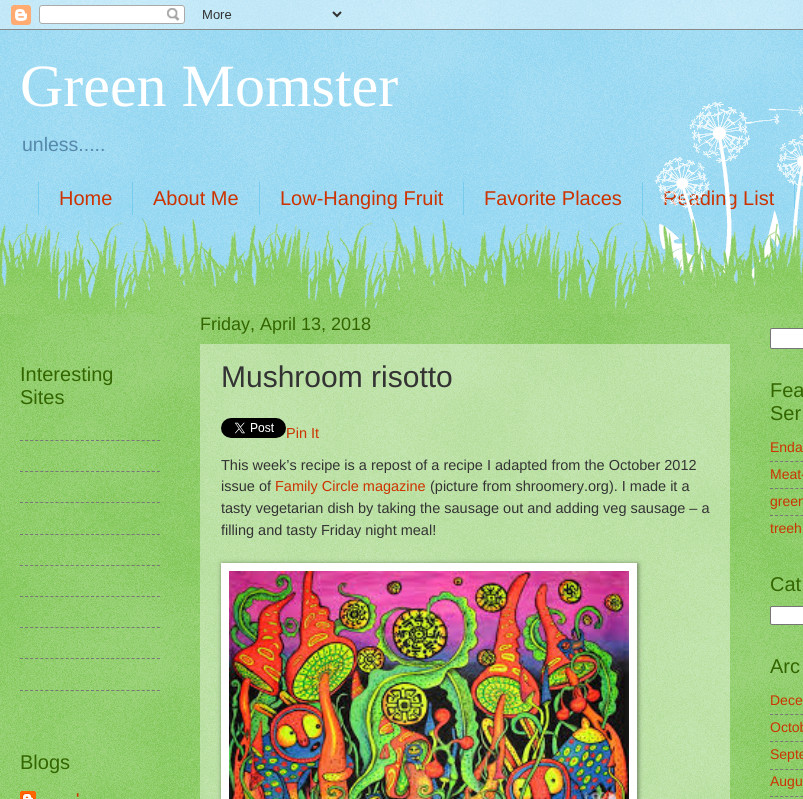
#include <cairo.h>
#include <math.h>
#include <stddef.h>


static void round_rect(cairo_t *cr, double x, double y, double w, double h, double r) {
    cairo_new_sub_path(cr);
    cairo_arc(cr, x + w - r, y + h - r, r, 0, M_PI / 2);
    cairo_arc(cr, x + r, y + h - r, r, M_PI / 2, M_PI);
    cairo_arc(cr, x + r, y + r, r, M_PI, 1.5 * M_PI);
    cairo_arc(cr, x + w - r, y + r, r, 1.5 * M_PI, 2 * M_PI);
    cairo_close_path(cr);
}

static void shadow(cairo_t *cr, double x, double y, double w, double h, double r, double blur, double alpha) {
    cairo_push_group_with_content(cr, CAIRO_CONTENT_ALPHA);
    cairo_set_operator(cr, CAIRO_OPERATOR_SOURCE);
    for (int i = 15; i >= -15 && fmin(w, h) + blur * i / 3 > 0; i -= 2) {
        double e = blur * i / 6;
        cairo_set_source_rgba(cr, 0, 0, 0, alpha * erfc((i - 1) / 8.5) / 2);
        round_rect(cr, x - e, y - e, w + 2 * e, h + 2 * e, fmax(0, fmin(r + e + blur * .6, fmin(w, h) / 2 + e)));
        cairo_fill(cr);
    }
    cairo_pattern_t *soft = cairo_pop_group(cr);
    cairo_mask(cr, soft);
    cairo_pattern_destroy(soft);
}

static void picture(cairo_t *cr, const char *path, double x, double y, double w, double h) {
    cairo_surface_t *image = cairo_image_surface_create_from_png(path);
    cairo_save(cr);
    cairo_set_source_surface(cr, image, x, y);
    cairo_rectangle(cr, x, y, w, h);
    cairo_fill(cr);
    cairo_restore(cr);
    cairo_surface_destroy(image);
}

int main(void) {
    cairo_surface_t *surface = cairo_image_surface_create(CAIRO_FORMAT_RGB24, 803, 799);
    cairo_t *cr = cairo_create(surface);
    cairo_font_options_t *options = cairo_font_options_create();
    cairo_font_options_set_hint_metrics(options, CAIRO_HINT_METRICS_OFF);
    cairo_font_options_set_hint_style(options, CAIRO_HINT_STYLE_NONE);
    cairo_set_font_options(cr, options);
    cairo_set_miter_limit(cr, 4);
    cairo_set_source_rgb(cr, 0.467, 0.8, 0.933);
    cairo_paint(cr);
    picture(cr, "img1.png", 0, 0, 803, 309);
    picture(cr, "img2.png", 0, 0, 803, 30);
    cairo_select_font_face(cr, "Liberation Serif", CAIRO_FONT_SLANT_NORMAL, CAIRO_FONT_WEIGHT_NORMAL);
    cairo_set_font_size(cr, 60);
    cairo_set_source_rgb(cr, 1, 1, 1);
    cairo_move_to(cr, 20, 106);
    cairo_show_text(cr, "Green Momster");
    cairo_select_font_face(cr, "Liberation Sans", CAIRO_FONT_SLANT_NORMAL, CAIRO_FONT_WEIGHT_NORMAL);
    cairo_set_font_size(cr, 19.5);
    cairo_set_source_rgb(cr, 0.333, 0.533, 0.667);
    cairo_move_to(cr, 22, 151);
    cairo_show_text(cr, "unless.....");
    cairo_set_source_rgb(cr, 0.467, 0.8, 0.933);
    cairo_rectangle(cr, 132, 182, 1, 33);
    cairo_fill(cr);
    cairo_rectangle(cr, 38, 182, 1, 33);
    cairo_fill(cr);
    cairo_set_font_size(cr, 20);
    cairo_set_source_rgb(cr, 0.8, 0.2, 0);
    cairo_move_to(cr, 59, 205);
    cairo_show_text(cr, "Home");
    cairo_set_source_rgb(cr, 0.467, 0.8, 0.933);
    cairo_rectangle(cr, 259, 182, 1, 33);
    cairo_fill(cr);
    cairo_set_source_rgb(cr, 0.8, 0.2, 0);
    cairo_move_to(cr, 153, 205);
    cairo_show_text(cr, "About Me");
    cairo_set_source_rgb(cr, 0.467, 0.8, 0.933);
    cairo_rectangle(cr, 463, 182, 1, 33);
    cairo_fill(cr);
    cairo_set_source_rgb(cr, 0.8, 0.2, 0);
    cairo_move_to(cr, 280, 205);
    cairo_show_text(cr, "Low-Hanging Fruit");
    cairo_set_source_rgb(cr, 0.467, 0.8, 0.933);
    cairo_rectangle(cr, 642, 182, 1, 33);
    cairo_fill(cr);
    cairo_set_source_rgb(cr, 0.8, 0.2, 0);
    cairo_move_to(cr, 484, 205);
    cairo_show_text(cr, "Favorite Places");
    cairo_set_source_rgb(cr, 0.467, 0.8, 0.933);
    cairo_rectangle(cr, 794, 182, 1, 33);
    cairo_fill(cr);
    cairo_set_source_rgb(cr, 0.8, 0.2, 0);
    cairo_move_to(cr, 663, 205);
    cairo_show_text(cr, "Reading List");
    cairo_set_source_rgb(cr, 0.4, 0.733, 0.2);
    cairo_rectangle(cr, 0, 314, 803, 485);
    cairo_fill(cr);
    picture(cr, "img3.png", 0, 314, 803, 485);
    picture(cr, "img4.png", 650, 102, 153, 191);
    picture(cr, "img5.png", 0, 218, 803, 96);
    cairo_set_source_rgb(cr, 0.2, 0.4, 0);
    cairo_move_to(cr, 20, 381);
    cairo_show_text(cr, "Interesting");
    cairo_move_to(cr, 20, 404);
    cairo_show_text(cr, "Sites");
    cairo_new_path(cr);
    cairo_move_to(cr, 20, 440.5);
    cairo_line_to(cr, 160, 440.5);
    cairo_set_source_rgb(cr, 0.467, 0.467, 0.467);
    cairo_set_line_width(cr, 1);
    cairo_set_dash(cr, (double[]){3, 2.07}, 2, 0);
    cairo_stroke(cr);
    cairo_new_path(cr);
    cairo_move_to(cr, 20, 471.5);
    cairo_line_to(cr, 160, 471.5);
    cairo_stroke(cr);
    cairo_new_path(cr);
    cairo_move_to(cr, 20, 502.5);
    cairo_line_to(cr, 160, 502.5);
    cairo_stroke(cr);
    cairo_new_path(cr);
    cairo_move_to(cr, 20, 534.5);
    cairo_line_to(cr, 160, 534.5);
    cairo_stroke(cr);
    cairo_new_path(cr);
    cairo_move_to(cr, 20, 565.5);
    cairo_line_to(cr, 160, 565.5);
    cairo_stroke(cr);
    cairo_new_path(cr);
    cairo_move_to(cr, 20, 596.5);
    cairo_line_to(cr, 160, 596.5);
    cairo_stroke(cr);
    cairo_new_path(cr);
    cairo_move_to(cr, 20, 627.5);
    cairo_line_to(cr, 160, 627.5);
    cairo_stroke(cr);
    cairo_new_path(cr);
    cairo_move_to(cr, 20, 658.5);
    cairo_line_to(cr, 160, 658.5);
    cairo_stroke(cr);
    cairo_new_path(cr);
    cairo_move_to(cr, 20, 690.5);
    cairo_line_to(cr, 160, 690.5);
    cairo_stroke(cr);
    cairo_set_source_rgb(cr, 0.2, 0.4, 0);
    cairo_move_to(cr, 20, 769);
    cairo_show_text(cr, "Blogs");
    picture(cr, "img6.png", 20, 791, 16, 8);
    cairo_select_font_face(cr, "Liberation Sans", CAIRO_FONT_SLANT_NORMAL, CAIRO_FONT_WEIGHT_BOLD);
    cairo_set_font_size(cr, 14);
    cairo_set_source_rgb(cr, 0.8, 0.2, 0);
    cairo_move_to(cr, 76, 803);
    cairo_show_text(cr, "'");
    cairo_select_font_face(cr, "Liberation Sans", CAIRO_FONT_SLANT_NORMAL, CAIRO_FONT_WEIGHT_NORMAL);
    cairo_set_font_size(cr, 18);
    cairo_set_source_rgb(cr, 0.2, 0.4, 0);
    cairo_move_to(cr, 200, 330);
    cairo_show_text(cr, "Friday, April 13, 2018");
    cairo_set_source_rgba(cr, 1, 1, 1, 0.4);
    cairo_rectangle(cr, 200, 344, 530, 455);
    cairo_fill(cr);
    cairo_set_font_size(cr, 30);
    cairo_set_source_rgb(cr, 0.2, 0.2, 0.2);
    cairo_move_to(cr, 221, 387);
    cairo_show_text(cr, "Mushroom risotto");
    picture(cr, "img7.png", 221, 418, 65, 20);
    cairo_set_font_size(cr, 14.5);
    cairo_set_source_rgb(cr, 0.8, 0.2, 0);
    cairo_move_to(cr, 286, 438);
    cairo_show_text(cr, "Pin It");
    cairo_set_source_rgb(cr, 0.2, 0.2, 0.2);
    cairo_move_to(cr, 221, 470);
    cairo_show_text(cr, "This week’s recipe is a repost of a recipe I adapted from the October 2012");
    cairo_move_to(cr, 221, 491);
    cairo_show_text(cr, "issue of");
    cairo_set_source_rgb(cr, 0.8, 0.2, 0);
    cairo_move_to(cr, 275, 491);
    cairo_show_text(cr, "Family Circle magazine");
    cairo_set_source_rgb(cr, 0.2, 0.2, 0.2);
    cairo_move_to(cr, 430, 491);
    cairo_show_text(cr, "(picture from shroomery.org). I made it a");
    cairo_move_to(cr, 221, 513);
    cairo_show_text(cr, "tasty vegetarian dish by taking the sausage out and adding veg sausage – a");
    cairo_move_to(cr, 221, 535);
    cairo_show_text(cr, "filling and tasty Friday night meal!");
    cairo_set_source_rgb(cr, 0, 0, 0);
    shadow(cr, 222, 564, 416, 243, 0, 2.5, 0.5);
    cairo_set_source_rgb(cr, 1, 1, 1);
    cairo_rectangle(cr, 221, 563, 416, 236);
    cairo_fill(cr);
    picture(cr, "img8.png", 229, 571, 400, 228);
    round_rect(cr, 770.5, 328.5, 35, 20, 1.5);
    cairo_fill_preserve(cr);
    cairo_set_source_rgb(cr, 0.463, 0.463, 0.463);
    cairo_set_dash(cr, NULL, 0, 0);
    cairo_stroke(cr);
    cairo_set_font_size(cr, 20);
    cairo_set_source_rgb(cr, 0.2, 0.4, 0);
    cairo_move_to(cr, 770, 397);
    cairo_show_text(cr, "Fea");
    cairo_move_to(cr, 770, 420);
    cairo_show_text(cr, "Ser");
    cairo_set_font_size(cr, 14);
    cairo_set_source_rgb(cr, 0.8, 0.2, 0);
    cairo_move_to(cr, 770, 452);
    cairo_show_text(cr, "Enda");
    cairo_new_path(cr);
    cairo_move_to(cr, 770, 461.5);
    cairo_line_to(cr, 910, 461.5);
    cairo_move_to(cr, 770, 488.5);
    cairo_line_to(cr, 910, 488.5);
    cairo_move_to(cr, 770, 515.5);
    cairo_line_to(cr, 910, 515.5);
    cairo_set_source_rgb(cr, 0.467, 0.467, 0.467);
    cairo_set_dash(cr, (double[]){3, 2.07}, 2, 0);
    cairo_stroke(cr);
    cairo_set_source_rgb(cr, 0.8, 0.2, 0);
    cairo_move_to(cr, 770, 479);
    cairo_show_text(cr, "Meat-");
    cairo_move_to(cr, 770, 506);
    cairo_show_text(cr, "green");
    cairo_move_to(cr, 770, 533);
    cairo_show_text(cr, "treeh");
    cairo_set_font_size(cr, 20);
    cairo_set_source_rgb(cr, 0.2, 0.4, 0);
    cairo_move_to(cr, 770, 591);
    cairo_show_text(cr, "Cat");
    cairo_set_source_rgb(cr, 1, 1, 1);
    round_rect(cr, 770.5, 606.5, 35, 18, 1.5);
    cairo_fill_preserve(cr);
    cairo_set_source_rgb(cr, 0.463, 0.463, 0.463);
    cairo_set_dash(cr, NULL, 0, 0);
    cairo_stroke(cr);
    cairo_set_source_rgb(cr, 0.2, 0.4, 0);
    cairo_move_to(cr, 770, 673);
    cairo_show_text(cr, "Arc");
    cairo_set_font_size(cr, 14);
    cairo_set_source_rgb(cr, 0.8, 0.2, 0);
    cairo_move_to(cr, 770, 705);
    cairo_show_text(cr, "Dece");
    cairo_new_path(cr);
    cairo_move_to(cr, 770, 714.5);
    cairo_line_to(cr, 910, 714.5);
    cairo_move_to(cr, 770, 741.5);
    cairo_line_to(cr, 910, 741.5);
    cairo_move_to(cr, 770, 769.5);
    cairo_line_to(cr, 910, 769.5);
    cairo_set_source_rgb(cr, 0.467, 0.467, 0.467);
    cairo_set_dash(cr, (double[]){3, 2.07}, 2, 0);
    cairo_stroke(cr);
    cairo_set_source_rgb(cr, 0.8, 0.2, 0);
    cairo_move_to(cr, 770, 732);
    cairo_show_text(cr, "Octob");
    cairo_move_to(cr, 770, 759);
    cairo_show_text(cr, "Septe");
    cairo_move_to(cr, 770, 786);
    cairo_show_text(cr, "Augu");
    cairo_new_path(cr);
    cairo_move_to(cr, 770, 796.5);
    cairo_line_to(cr, 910, 796.5);
    cairo_set_source_rgb(cr, 0.467, 0.467, 0.467);
    cairo_stroke(cr);
    cairo_surface_write_to_png(surface, "page.png");
    cairo_font_options_destroy(options);
    cairo_destroy(cr);
    cairo_surface_destroy(surface);
    return 0;
}
